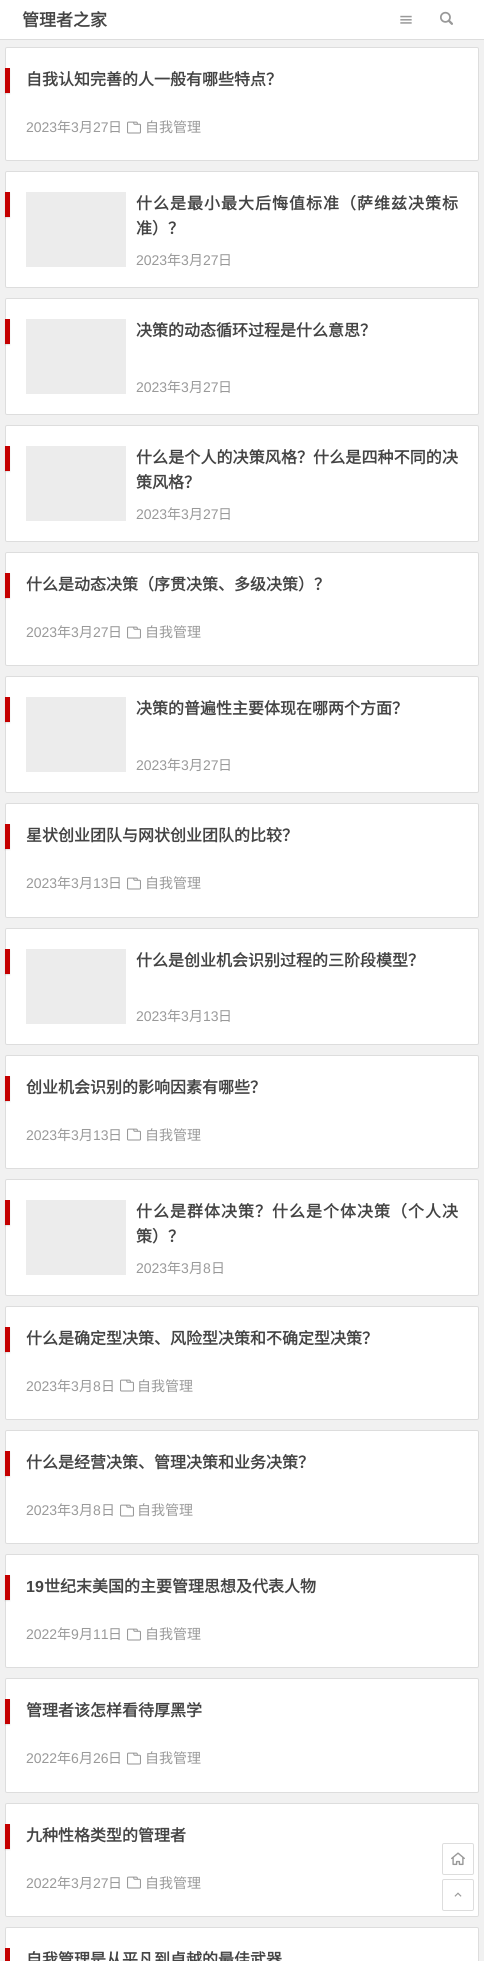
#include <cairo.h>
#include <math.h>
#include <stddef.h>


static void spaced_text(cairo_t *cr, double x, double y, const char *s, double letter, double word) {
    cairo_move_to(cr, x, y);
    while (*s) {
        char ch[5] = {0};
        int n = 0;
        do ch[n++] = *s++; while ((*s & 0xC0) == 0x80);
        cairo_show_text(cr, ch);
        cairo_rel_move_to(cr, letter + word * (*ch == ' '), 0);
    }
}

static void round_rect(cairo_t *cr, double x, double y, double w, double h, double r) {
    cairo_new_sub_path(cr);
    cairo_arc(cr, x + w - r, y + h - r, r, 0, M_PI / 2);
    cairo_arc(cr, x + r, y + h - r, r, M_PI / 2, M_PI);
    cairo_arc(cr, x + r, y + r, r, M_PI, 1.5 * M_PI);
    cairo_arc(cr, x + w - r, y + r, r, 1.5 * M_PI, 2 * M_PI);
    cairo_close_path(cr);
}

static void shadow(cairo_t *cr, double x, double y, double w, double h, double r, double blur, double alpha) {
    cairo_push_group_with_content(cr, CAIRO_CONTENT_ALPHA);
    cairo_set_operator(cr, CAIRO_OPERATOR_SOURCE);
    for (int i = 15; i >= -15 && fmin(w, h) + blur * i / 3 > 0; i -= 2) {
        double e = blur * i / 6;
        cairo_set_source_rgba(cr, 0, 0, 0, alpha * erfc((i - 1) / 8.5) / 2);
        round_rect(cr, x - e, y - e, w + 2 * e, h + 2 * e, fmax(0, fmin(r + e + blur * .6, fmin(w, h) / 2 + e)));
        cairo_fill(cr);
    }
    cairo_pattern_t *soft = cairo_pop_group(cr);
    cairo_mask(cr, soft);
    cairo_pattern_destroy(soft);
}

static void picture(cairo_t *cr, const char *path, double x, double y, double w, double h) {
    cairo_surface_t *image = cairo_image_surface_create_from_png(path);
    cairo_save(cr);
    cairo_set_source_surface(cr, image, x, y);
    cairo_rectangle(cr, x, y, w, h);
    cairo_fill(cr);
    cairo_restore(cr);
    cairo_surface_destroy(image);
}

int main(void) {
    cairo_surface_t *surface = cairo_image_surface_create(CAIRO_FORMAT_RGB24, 484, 1961);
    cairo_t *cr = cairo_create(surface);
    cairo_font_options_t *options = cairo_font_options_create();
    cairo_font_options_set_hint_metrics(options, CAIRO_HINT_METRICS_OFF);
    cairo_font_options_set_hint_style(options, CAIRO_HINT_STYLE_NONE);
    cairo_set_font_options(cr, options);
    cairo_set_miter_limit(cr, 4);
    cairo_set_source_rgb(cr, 0.945, 0.945, 0.945);
    cairo_paint(cr);
    cairo_set_source_rgb(cr, 1, 1, 1);
    cairo_rectangle(cr, 0, 0, 484, 39);
    cairo_fill(cr);
    cairo_set_source_rgb(cr, 0.867, 0.867, 0.867);
    cairo_rectangle(cr, 0, 39, 484, 1);
    cairo_fill(cr);
    cairo_select_font_face(cr, "Noto Sans CJK SC", CAIRO_FONT_SLANT_NORMAL, CAIRO_FONT_WEIGHT_BOLD);
    cairo_set_font_size(cr, 17);
    cairo_set_source_rgb(cr, 0.267, 0.267, 0.267);
    cairo_move_to(cr, 22, 26);
    cairo_show_text(cr, "管理者之家");
    picture(cr, "img1.png", 400, 15, 12, 9);
    picture(cr, "img2.png", 440, 11, 13, 14);
    cairo_set_source_rgb(cr, 1, 1, 1);
    round_rect(cr, 5.5, 47.5, 473, 113, 1.5);
    cairo_fill_preserve(cr);
    cairo_set_source_rgb(cr, 0.867, 0.867, 0.867);
    cairo_set_line_width(cr, 1);
    cairo_stroke(cr);
    cairo_set_font_size(cr, 16);
    cairo_set_source_rgb(cr, 0.267, 0.267, 0.267);
    cairo_move_to(cr, 26, 85);
    cairo_show_text(cr, "自我认知完善的人一般有哪些特点？");
    cairo_set_source_rgb(cr, 0, 0, 0);
    shadow(cr, 5, 69, 5, 25, 0, 0.5, 0.1);
    cairo_set_source_rgb(cr, 0.769, 0, 0);
    cairo_rectangle(cr, 5, 68, 5, 25);
    cairo_fill(cr);
    cairo_select_font_face(cr, "Liberation Sans", CAIRO_FONT_SLANT_NORMAL, CAIRO_FONT_WEIGHT_NORMAL);
    cairo_set_font_size(cr, 14);
    cairo_set_source_rgb(cr, 0.6, 0.6, 0.6);
    cairo_move_to(cr, 26, 132);
    cairo_show_text(cr, "2023");
    cairo_select_font_face(cr, "Noto Sans CJK SC", CAIRO_FONT_SLANT_NORMAL, CAIRO_FONT_WEIGHT_NORMAL);
    cairo_move_to(cr, 57, 132);
    cairo_show_text(cr, "年");
    cairo_select_font_face(cr, "Liberation Sans", CAIRO_FONT_SLANT_NORMAL, CAIRO_FONT_WEIGHT_NORMAL);
    cairo_move_to(cr, 71, 132);
    cairo_show_text(cr, "3");
    cairo_select_font_face(cr, "Noto Sans CJK SC", CAIRO_FONT_SLANT_NORMAL, CAIRO_FONT_WEIGHT_NORMAL);
    cairo_move_to(cr, 79, 132);
    cairo_show_text(cr, "月");
    cairo_select_font_face(cr, "Liberation Sans", CAIRO_FONT_SLANT_NORMAL, CAIRO_FONT_WEIGHT_NORMAL);
    cairo_move_to(cr, 93, 132);
    cairo_show_text(cr, "27");
    cairo_select_font_face(cr, "Noto Sans CJK SC", CAIRO_FONT_SLANT_NORMAL, CAIRO_FONT_WEIGHT_NORMAL);
    cairo_move_to(cr, 108, 132);
    cairo_show_text(cr, "日");
    picture(cr, "img3.png", 127, 121, 14, 13);
    cairo_move_to(cr, 145, 132);
    cairo_show_text(cr, "自我管理");
    cairo_set_source_rgb(cr, 1, 1, 1);
    round_rect(cr, 5.5, 171.5, 473, 116, 1.5);
    cairo_fill_preserve(cr);
    cairo_set_source_rgb(cr, 0.867, 0.867, 0.867);
    cairo_stroke(cr);
    cairo_set_source_rgb(cr, 0.922, 0.922, 0.922);
    cairo_rectangle(cr, 26, 192, 100, 75);
    cairo_fill(cr);
    cairo_select_font_face(cr, "Noto Sans CJK SC", CAIRO_FONT_SLANT_NORMAL, CAIRO_FONT_WEIGHT_BOLD);
    cairo_set_font_size(cr, 16);
    cairo_set_source_rgb(cr, 0.267, 0.267, 0.267);
    spaced_text(cr, 136, 209, "什么是最小最大后悔值标准（萨维兹决策标", 1, 0);
    cairo_move_to(cr, 136, 234);
    cairo_show_text(cr, "准）？");
    cairo_set_source_rgb(cr, 0, 0, 0);
    shadow(cr, 5, 193, 5, 25, 0, 0.5, 0.1);
    cairo_set_source_rgb(cr, 0.769, 0, 0);
    cairo_rectangle(cr, 5, 192, 5, 25);
    cairo_fill(cr);
    cairo_select_font_face(cr, "Liberation Sans", CAIRO_FONT_SLANT_NORMAL, CAIRO_FONT_WEIGHT_NORMAL);
    cairo_set_font_size(cr, 14);
    cairo_set_source_rgb(cr, 0.6, 0.6, 0.6);
    cairo_move_to(cr, 136, 265);
    cairo_show_text(cr, "2023");
    cairo_select_font_face(cr, "Noto Sans CJK SC", CAIRO_FONT_SLANT_NORMAL, CAIRO_FONT_WEIGHT_NORMAL);
    cairo_move_to(cr, 167, 265);
    cairo_show_text(cr, "年");
    cairo_select_font_face(cr, "Liberation Sans", CAIRO_FONT_SLANT_NORMAL, CAIRO_FONT_WEIGHT_NORMAL);
    cairo_move_to(cr, 181, 265);
    cairo_show_text(cr, "3");
    cairo_select_font_face(cr, "Noto Sans CJK SC", CAIRO_FONT_SLANT_NORMAL, CAIRO_FONT_WEIGHT_NORMAL);
    cairo_move_to(cr, 189, 265);
    cairo_show_text(cr, "月");
    cairo_select_font_face(cr, "Liberation Sans", CAIRO_FONT_SLANT_NORMAL, CAIRO_FONT_WEIGHT_NORMAL);
    cairo_move_to(cr, 203, 265);
    cairo_show_text(cr, "27");
    cairo_select_font_face(cr, "Noto Sans CJK SC", CAIRO_FONT_SLANT_NORMAL, CAIRO_FONT_WEIGHT_NORMAL);
    cairo_move_to(cr, 218, 265);
    cairo_show_text(cr, "日");
    cairo_set_source_rgb(cr, 1, 1, 1);
    round_rect(cr, 5.5, 298.5, 473, 116, 1.5);
    cairo_fill_preserve(cr);
    cairo_set_source_rgb(cr, 0.867, 0.867, 0.867);
    cairo_stroke(cr);
    cairo_set_source_rgb(cr, 0.922, 0.922, 0.922);
    cairo_rectangle(cr, 26, 319, 100, 75);
    cairo_fill(cr);
    cairo_select_font_face(cr, "Noto Sans CJK SC", CAIRO_FONT_SLANT_NORMAL, CAIRO_FONT_WEIGHT_BOLD);
    cairo_set_font_size(cr, 16);
    cairo_set_source_rgb(cr, 0.267, 0.267, 0.267);
    cairo_move_to(cr, 136, 336);
    cairo_show_text(cr, "决策的动态循环过程是什么意思？");
    cairo_set_source_rgb(cr, 0, 0, 0);
    shadow(cr, 5, 320, 5, 25, 0, 0.5, 0.1);
    cairo_set_source_rgb(cr, 0.769, 0, 0);
    cairo_rectangle(cr, 5, 319, 5, 25);
    cairo_fill(cr);
    cairo_select_font_face(cr, "Liberation Sans", CAIRO_FONT_SLANT_NORMAL, CAIRO_FONT_WEIGHT_NORMAL);
    cairo_set_font_size(cr, 14);
    cairo_set_source_rgb(cr, 0.6, 0.6, 0.6);
    cairo_move_to(cr, 136, 392);
    cairo_show_text(cr, "2023");
    cairo_select_font_face(cr, "Noto Sans CJK SC", CAIRO_FONT_SLANT_NORMAL, CAIRO_FONT_WEIGHT_NORMAL);
    cairo_move_to(cr, 167, 392);
    cairo_show_text(cr, "年");
    cairo_select_font_face(cr, "Liberation Sans", CAIRO_FONT_SLANT_NORMAL, CAIRO_FONT_WEIGHT_NORMAL);
    cairo_move_to(cr, 181, 392);
    cairo_show_text(cr, "3");
    cairo_select_font_face(cr, "Noto Sans CJK SC", CAIRO_FONT_SLANT_NORMAL, CAIRO_FONT_WEIGHT_NORMAL);
    cairo_move_to(cr, 189, 392);
    cairo_show_text(cr, "月");
    cairo_select_font_face(cr, "Liberation Sans", CAIRO_FONT_SLANT_NORMAL, CAIRO_FONT_WEIGHT_NORMAL);
    cairo_move_to(cr, 203, 392);
    cairo_show_text(cr, "27");
    cairo_select_font_face(cr, "Noto Sans CJK SC", CAIRO_FONT_SLANT_NORMAL, CAIRO_FONT_WEIGHT_NORMAL);
    cairo_move_to(cr, 218, 392);
    cairo_show_text(cr, "日");
    cairo_set_source_rgb(cr, 1, 1, 1);
    round_rect(cr, 5.5, 425.5, 473, 116, 1.5);
    cairo_fill_preserve(cr);
    cairo_set_source_rgb(cr, 0.867, 0.867, 0.867);
    cairo_stroke(cr);
    cairo_set_source_rgb(cr, 0.922, 0.922, 0.922);
    cairo_rectangle(cr, 26, 446, 100, 75);
    cairo_fill(cr);
    cairo_select_font_face(cr, "Noto Sans CJK SC", CAIRO_FONT_SLANT_NORMAL, CAIRO_FONT_WEIGHT_BOLD);
    cairo_set_font_size(cr, 16);
    cairo_set_source_rgb(cr, 0.267, 0.267, 0.267);
    spaced_text(cr, 136, 463, "什么是个人的决策风格？什么是四种不同的决", 0.1, 0);
    cairo_move_to(cr, 136, 488);
    cairo_show_text(cr, "策风格？");
    cairo_set_source_rgb(cr, 0, 0, 0);
    shadow(cr, 5, 447, 5, 25, 0, 0.5, 0.1);
    cairo_set_source_rgb(cr, 0.769, 0, 0);
    cairo_rectangle(cr, 5, 446, 5, 25);
    cairo_fill(cr);
    cairo_select_font_face(cr, "Liberation Sans", CAIRO_FONT_SLANT_NORMAL, CAIRO_FONT_WEIGHT_NORMAL);
    cairo_set_font_size(cr, 14);
    cairo_set_source_rgb(cr, 0.6, 0.6, 0.6);
    cairo_move_to(cr, 136, 519);
    cairo_show_text(cr, "2023");
    cairo_select_font_face(cr, "Noto Sans CJK SC", CAIRO_FONT_SLANT_NORMAL, CAIRO_FONT_WEIGHT_NORMAL);
    cairo_move_to(cr, 167, 519);
    cairo_show_text(cr, "年");
    cairo_select_font_face(cr, "Liberation Sans", CAIRO_FONT_SLANT_NORMAL, CAIRO_FONT_WEIGHT_NORMAL);
    cairo_move_to(cr, 181, 519);
    cairo_show_text(cr, "3");
    cairo_select_font_face(cr, "Noto Sans CJK SC", CAIRO_FONT_SLANT_NORMAL, CAIRO_FONT_WEIGHT_NORMAL);
    cairo_move_to(cr, 189, 519);
    cairo_show_text(cr, "月");
    cairo_select_font_face(cr, "Liberation Sans", CAIRO_FONT_SLANT_NORMAL, CAIRO_FONT_WEIGHT_NORMAL);
    cairo_move_to(cr, 203, 519);
    cairo_show_text(cr, "27");
    cairo_select_font_face(cr, "Noto Sans CJK SC", CAIRO_FONT_SLANT_NORMAL, CAIRO_FONT_WEIGHT_NORMAL);
    cairo_move_to(cr, 218, 519);
    cairo_show_text(cr, "日");
    cairo_set_source_rgb(cr, 1, 1, 1);
    round_rect(cr, 5.5, 552.5, 473, 113, 1.5);
    cairo_fill_preserve(cr);
    cairo_set_source_rgb(cr, 0.867, 0.867, 0.867);
    cairo_stroke(cr);
    cairo_select_font_face(cr, "Noto Sans CJK SC", CAIRO_FONT_SLANT_NORMAL, CAIRO_FONT_WEIGHT_BOLD);
    cairo_set_font_size(cr, 16);
    cairo_set_source_rgb(cr, 0.267, 0.267, 0.267);
    cairo_move_to(cr, 26, 590);
    cairo_show_text(cr, "什么是动态决策（序贯决策、多级决策）？");
    cairo_set_source_rgb(cr, 0, 0, 0);
    shadow(cr, 5, 574, 5, 25, 0, 0.5, 0.1);
    cairo_set_source_rgb(cr, 0.769, 0, 0);
    cairo_rectangle(cr, 5, 573, 5, 25);
    cairo_fill(cr);
    cairo_select_font_face(cr, "Liberation Sans", CAIRO_FONT_SLANT_NORMAL, CAIRO_FONT_WEIGHT_NORMAL);
    cairo_set_font_size(cr, 14);
    cairo_set_source_rgb(cr, 0.6, 0.6, 0.6);
    cairo_move_to(cr, 26, 637);
    cairo_show_text(cr, "2023");
    cairo_select_font_face(cr, "Noto Sans CJK SC", CAIRO_FONT_SLANT_NORMAL, CAIRO_FONT_WEIGHT_NORMAL);
    cairo_move_to(cr, 57, 637);
    cairo_show_text(cr, "年");
    cairo_select_font_face(cr, "Liberation Sans", CAIRO_FONT_SLANT_NORMAL, CAIRO_FONT_WEIGHT_NORMAL);
    cairo_move_to(cr, 71, 637);
    cairo_show_text(cr, "3");
    cairo_select_font_face(cr, "Noto Sans CJK SC", CAIRO_FONT_SLANT_NORMAL, CAIRO_FONT_WEIGHT_NORMAL);
    cairo_move_to(cr, 79, 637);
    cairo_show_text(cr, "月");
    cairo_select_font_face(cr, "Liberation Sans", CAIRO_FONT_SLANT_NORMAL, CAIRO_FONT_WEIGHT_NORMAL);
    cairo_move_to(cr, 93, 637);
    cairo_show_text(cr, "27");
    cairo_select_font_face(cr, "Noto Sans CJK SC", CAIRO_FONT_SLANT_NORMAL, CAIRO_FONT_WEIGHT_NORMAL);
    cairo_move_to(cr, 108, 637);
    cairo_show_text(cr, "日");
    picture(cr, "img3.png", 127, 626, 14, 13);
    cairo_move_to(cr, 145, 637);
    cairo_show_text(cr, "自我管理");
    cairo_set_source_rgb(cr, 1, 1, 1);
    round_rect(cr, 5.5, 676.5, 473, 116, 1.5);
    cairo_fill_preserve(cr);
    cairo_set_source_rgb(cr, 0.867, 0.867, 0.867);
    cairo_stroke(cr);
    cairo_set_source_rgb(cr, 0.922, 0.922, 0.922);
    cairo_rectangle(cr, 26, 697, 100, 75);
    cairo_fill(cr);
    cairo_select_font_face(cr, "Noto Sans CJK SC", CAIRO_FONT_SLANT_NORMAL, CAIRO_FONT_WEIGHT_BOLD);
    cairo_set_font_size(cr, 16);
    cairo_set_source_rgb(cr, 0.267, 0.267, 0.267);
    cairo_move_to(cr, 136, 714);
    cairo_show_text(cr, "决策的普遍性主要体现在哪两个方面？");
    cairo_set_source_rgb(cr, 0, 0, 0);
    shadow(cr, 5, 698, 5, 25, 0, 0.5, 0.1);
    cairo_set_source_rgb(cr, 0.769, 0, 0);
    cairo_rectangle(cr, 5, 697, 5, 25);
    cairo_fill(cr);
    cairo_select_font_face(cr, "Liberation Sans", CAIRO_FONT_SLANT_NORMAL, CAIRO_FONT_WEIGHT_NORMAL);
    cairo_set_font_size(cr, 14);
    cairo_set_source_rgb(cr, 0.6, 0.6, 0.6);
    cairo_move_to(cr, 136, 770);
    cairo_show_text(cr, "2023");
    cairo_select_font_face(cr, "Noto Sans CJK SC", CAIRO_FONT_SLANT_NORMAL, CAIRO_FONT_WEIGHT_NORMAL);
    cairo_move_to(cr, 167, 770);
    cairo_show_text(cr, "年");
    cairo_select_font_face(cr, "Liberation Sans", CAIRO_FONT_SLANT_NORMAL, CAIRO_FONT_WEIGHT_NORMAL);
    cairo_move_to(cr, 181, 770);
    cairo_show_text(cr, "3");
    cairo_select_font_face(cr, "Noto Sans CJK SC", CAIRO_FONT_SLANT_NORMAL, CAIRO_FONT_WEIGHT_NORMAL);
    cairo_move_to(cr, 189, 770);
    cairo_show_text(cr, "月");
    cairo_select_font_face(cr, "Liberation Sans", CAIRO_FONT_SLANT_NORMAL, CAIRO_FONT_WEIGHT_NORMAL);
    cairo_move_to(cr, 203, 770);
    cairo_show_text(cr, "27");
    cairo_select_font_face(cr, "Noto Sans CJK SC", CAIRO_FONT_SLANT_NORMAL, CAIRO_FONT_WEIGHT_NORMAL);
    cairo_move_to(cr, 218, 770);
    cairo_show_text(cr, "日");
    cairo_set_source_rgb(cr, 1, 1, 1);
    round_rect(cr, 5.5, 803.5, 473, 114, 1.5);
    cairo_fill_preserve(cr);
    cairo_set_source_rgb(cr, 0.867, 0.867, 0.867);
    cairo_stroke(cr);
    cairo_select_font_face(cr, "Noto Sans CJK SC", CAIRO_FONT_SLANT_NORMAL, CAIRO_FONT_WEIGHT_BOLD);
    cairo_set_font_size(cr, 16);
    cairo_set_source_rgb(cr, 0.267, 0.267, 0.267);
    cairo_move_to(cr, 26, 841);
    cairo_show_text(cr, "星状创业团队与网状创业团队的比较？");
    cairo_set_source_rgb(cr, 0, 0, 0);
    shadow(cr, 5, 825, 5, 25, 0, 0.5, 0.1);
    cairo_set_source_rgb(cr, 0.769, 0, 0);
    cairo_rectangle(cr, 5, 824, 5, 25);
    cairo_fill(cr);
    cairo_select_font_face(cr, "Liberation Sans", CAIRO_FONT_SLANT_NORMAL, CAIRO_FONT_WEIGHT_NORMAL);
    cairo_set_font_size(cr, 14);
    cairo_set_source_rgb(cr, 0.6, 0.6, 0.6);
    cairo_move_to(cr, 26, 888);
    cairo_show_text(cr, "2023");
    cairo_select_font_face(cr, "Noto Sans CJK SC", CAIRO_FONT_SLANT_NORMAL, CAIRO_FONT_WEIGHT_NORMAL);
    cairo_move_to(cr, 57, 888);
    cairo_show_text(cr, "年");
    cairo_select_font_face(cr, "Liberation Sans", CAIRO_FONT_SLANT_NORMAL, CAIRO_FONT_WEIGHT_NORMAL);
    cairo_move_to(cr, 71, 888);
    cairo_show_text(cr, "3");
    cairo_select_font_face(cr, "Noto Sans CJK SC", CAIRO_FONT_SLANT_NORMAL, CAIRO_FONT_WEIGHT_NORMAL);
    cairo_move_to(cr, 79, 888);
    cairo_show_text(cr, "月");
    cairo_select_font_face(cr, "Liberation Sans", CAIRO_FONT_SLANT_NORMAL, CAIRO_FONT_WEIGHT_NORMAL);
    cairo_move_to(cr, 93, 888);
    cairo_show_text(cr, "13");
    cairo_select_font_face(cr, "Noto Sans CJK SC", CAIRO_FONT_SLANT_NORMAL, CAIRO_FONT_WEIGHT_NORMAL);
    cairo_move_to(cr, 108, 888);
    cairo_show_text(cr, "日");
    picture(cr, "img3.png", 127, 877, 14, 13);
    cairo_move_to(cr, 145, 888);
    cairo_show_text(cr, "自我管理");
    cairo_set_source_rgb(cr, 1, 1, 1);
    round_rect(cr, 5.5, 928.5, 473, 116, 1.5);
    cairo_fill_preserve(cr);
    cairo_set_source_rgb(cr, 0.867, 0.867, 0.867);
    cairo_stroke(cr);
    cairo_set_source_rgb(cr, 0.922, 0.922, 0.922);
    cairo_rectangle(cr, 26, 949, 100, 75);
    cairo_fill(cr);
    cairo_select_font_face(cr, "Noto Sans CJK SC", CAIRO_FONT_SLANT_NORMAL, CAIRO_FONT_WEIGHT_BOLD);
    cairo_set_font_size(cr, 16);
    cairo_set_source_rgb(cr, 0.267, 0.267, 0.267);
    cairo_move_to(cr, 136, 966);
    cairo_show_text(cr, "什么是创业机会识别过程的三阶段模型？");
    cairo_set_source_rgb(cr, 0, 0, 0);
    shadow(cr, 5, 950, 5, 25, 0, 0.5, 0.1);
    cairo_set_source_rgb(cr, 0.769, 0, 0);
    cairo_rectangle(cr, 5, 949, 5, 25);
    cairo_fill(cr);
    cairo_select_font_face(cr, "Liberation Sans", CAIRO_FONT_SLANT_NORMAL, CAIRO_FONT_WEIGHT_NORMAL);
    cairo_set_font_size(cr, 14);
    cairo_set_source_rgb(cr, 0.6, 0.6, 0.6);
    cairo_move_to(cr, 136, 1021);
    cairo_show_text(cr, "2023");
    cairo_select_font_face(cr, "Noto Sans CJK SC", CAIRO_FONT_SLANT_NORMAL, CAIRO_FONT_WEIGHT_NORMAL);
    cairo_move_to(cr, 167, 1021);
    cairo_show_text(cr, "年");
    cairo_select_font_face(cr, "Liberation Sans", CAIRO_FONT_SLANT_NORMAL, CAIRO_FONT_WEIGHT_NORMAL);
    cairo_move_to(cr, 181, 1021);
    cairo_show_text(cr, "3");
    cairo_select_font_face(cr, "Noto Sans CJK SC", CAIRO_FONT_SLANT_NORMAL, CAIRO_FONT_WEIGHT_NORMAL);
    cairo_move_to(cr, 189, 1021);
    cairo_show_text(cr, "月");
    cairo_select_font_face(cr, "Liberation Sans", CAIRO_FONT_SLANT_NORMAL, CAIRO_FONT_WEIGHT_NORMAL);
    cairo_move_to(cr, 203, 1021);
    cairo_show_text(cr, "13");
    cairo_select_font_face(cr, "Noto Sans CJK SC", CAIRO_FONT_SLANT_NORMAL, CAIRO_FONT_WEIGHT_NORMAL);
    cairo_move_to(cr, 218, 1021);
    cairo_show_text(cr, "日");
    cairo_set_source_rgb(cr, 1, 1, 1);
    round_rect(cr, 5.5, 1055.5, 473, 113, 1.5);
    cairo_fill_preserve(cr);
    cairo_set_source_rgb(cr, 0.867, 0.867, 0.867);
    cairo_stroke(cr);
    cairo_select_font_face(cr, "Noto Sans CJK SC", CAIRO_FONT_SLANT_NORMAL, CAIRO_FONT_WEIGHT_BOLD);
    cairo_set_font_size(cr, 16);
    cairo_set_source_rgb(cr, 0.267, 0.267, 0.267);
    cairo_move_to(cr, 26, 1093);
    cairo_show_text(cr, "创业机会识别的影响因素有哪些？");
    cairo_set_source_rgb(cr, 0, 0, 0);
    shadow(cr, 5, 1077, 5, 25, 0, 0.5, 0.1);
    cairo_set_source_rgb(cr, 0.769, 0, 0);
    cairo_rectangle(cr, 5, 1076, 5, 25);
    cairo_fill(cr);
    cairo_select_font_face(cr, "Liberation Sans", CAIRO_FONT_SLANT_NORMAL, CAIRO_FONT_WEIGHT_NORMAL);
    cairo_set_font_size(cr, 14);
    cairo_set_source_rgb(cr, 0.6, 0.6, 0.6);
    cairo_move_to(cr, 26, 1140);
    cairo_show_text(cr, "2023");
    cairo_select_font_face(cr, "Noto Sans CJK SC", CAIRO_FONT_SLANT_NORMAL, CAIRO_FONT_WEIGHT_NORMAL);
    cairo_move_to(cr, 57, 1140);
    cairo_show_text(cr, "年");
    cairo_select_font_face(cr, "Liberation Sans", CAIRO_FONT_SLANT_NORMAL, CAIRO_FONT_WEIGHT_NORMAL);
    cairo_move_to(cr, 71, 1140);
    cairo_show_text(cr, "3");
    cairo_select_font_face(cr, "Noto Sans CJK SC", CAIRO_FONT_SLANT_NORMAL, CAIRO_FONT_WEIGHT_NORMAL);
    cairo_move_to(cr, 79, 1140);
    cairo_show_text(cr, "月");
    cairo_select_font_face(cr, "Liberation Sans", CAIRO_FONT_SLANT_NORMAL, CAIRO_FONT_WEIGHT_NORMAL);
    cairo_move_to(cr, 93, 1140);
    cairo_show_text(cr, "13");
    cairo_select_font_face(cr, "Noto Sans CJK SC", CAIRO_FONT_SLANT_NORMAL, CAIRO_FONT_WEIGHT_NORMAL);
    cairo_move_to(cr, 108, 1140);
    cairo_show_text(cr, "日");
    picture(cr, "img3.png", 127, 1128, 14, 13);
    cairo_move_to(cr, 145, 1140);
    cairo_show_text(cr, "自我管理");
    cairo_set_source_rgb(cr, 1, 1, 1);
    round_rect(cr, 5.5, 1179.5, 473, 116, 1.5);
    cairo_fill_preserve(cr);
    cairo_set_source_rgb(cr, 0.867, 0.867, 0.867);
    cairo_stroke(cr);
    cairo_set_source_rgb(cr, 0.922, 0.922, 0.922);
    cairo_rectangle(cr, 26, 1200, 100, 75);
    cairo_fill(cr);
    cairo_select_font_face(cr, "Noto Sans CJK SC", CAIRO_FONT_SLANT_NORMAL, CAIRO_FONT_WEIGHT_BOLD);
    cairo_set_font_size(cr, 16);
    cairo_set_source_rgb(cr, 0.267, 0.267, 0.267);
    spaced_text(cr, 136, 1217, "什么是群体决策？什么是个体决策（个人决", 1, 0);
    cairo_move_to(cr, 136, 1242);
    cairo_show_text(cr, "策）？");
    cairo_set_source_rgb(cr, 0, 0, 0);
    shadow(cr, 5, 1201, 5, 25, 0, 0.5, 0.1);
    cairo_set_source_rgb(cr, 0.769, 0, 0);
    cairo_rectangle(cr, 5, 1200, 5, 25);
    cairo_fill(cr);
    cairo_select_font_face(cr, "Liberation Sans", CAIRO_FONT_SLANT_NORMAL, CAIRO_FONT_WEIGHT_NORMAL);
    cairo_set_font_size(cr, 14);
    cairo_set_source_rgb(cr, 0.6, 0.6, 0.6);
    cairo_move_to(cr, 136, 1273);
    cairo_show_text(cr, "2023");
    cairo_select_font_face(cr, "Noto Sans CJK SC", CAIRO_FONT_SLANT_NORMAL, CAIRO_FONT_WEIGHT_NORMAL);
    cairo_move_to(cr, 167, 1273);
    cairo_show_text(cr, "年");
    cairo_select_font_face(cr, "Liberation Sans", CAIRO_FONT_SLANT_NORMAL, CAIRO_FONT_WEIGHT_NORMAL);
    cairo_move_to(cr, 181, 1273);
    cairo_show_text(cr, "3");
    cairo_select_font_face(cr, "Noto Sans CJK SC", CAIRO_FONT_SLANT_NORMAL, CAIRO_FONT_WEIGHT_NORMAL);
    cairo_move_to(cr, 189, 1273);
    cairo_show_text(cr, "月");
    cairo_select_font_face(cr, "Liberation Sans", CAIRO_FONT_SLANT_NORMAL, CAIRO_FONT_WEIGHT_NORMAL);
    cairo_move_to(cr, 203, 1273);
    cairo_show_text(cr, "8");
    cairo_select_font_face(cr, "Noto Sans CJK SC", CAIRO_FONT_SLANT_NORMAL, CAIRO_FONT_WEIGHT_NORMAL);
    cairo_move_to(cr, 211, 1273);
    cairo_show_text(cr, "日");
    cairo_set_source_rgb(cr, 1, 1, 1);
    round_rect(cr, 5.5, 1306.5, 473, 113, 1.5);
    cairo_fill_preserve(cr);
    cairo_set_source_rgb(cr, 0.867, 0.867, 0.867);
    cairo_stroke(cr);
    cairo_select_font_face(cr, "Noto Sans CJK SC", CAIRO_FONT_SLANT_NORMAL, CAIRO_FONT_WEIGHT_BOLD);
    cairo_set_font_size(cr, 16);
    cairo_set_source_rgb(cr, 0.267, 0.267, 0.267);
    cairo_move_to(cr, 26, 1344);
    cairo_show_text(cr, "什么是确定型决策、风险型决策和不确定型决策？");
    cairo_set_source_rgb(cr, 0, 0, 0);
    shadow(cr, 5, 1328, 5, 25, 0, 0.5, 0.1);
    cairo_set_source_rgb(cr, 0.769, 0, 0);
    cairo_rectangle(cr, 5, 1327, 5, 25);
    cairo_fill(cr);
    cairo_select_font_face(cr, "Liberation Sans", CAIRO_FONT_SLANT_NORMAL, CAIRO_FONT_WEIGHT_NORMAL);
    cairo_set_font_size(cr, 14);
    cairo_set_source_rgb(cr, 0.6, 0.6, 0.6);
    cairo_move_to(cr, 26, 1391);
    cairo_show_text(cr, "2023");
    cairo_select_font_face(cr, "Noto Sans CJK SC", CAIRO_FONT_SLANT_NORMAL, CAIRO_FONT_WEIGHT_NORMAL);
    cairo_move_to(cr, 57, 1391);
    cairo_show_text(cr, "年");
    cairo_select_font_face(cr, "Liberation Sans", CAIRO_FONT_SLANT_NORMAL, CAIRO_FONT_WEIGHT_NORMAL);
    cairo_move_to(cr, 71, 1391);
    cairo_show_text(cr, "3");
    cairo_select_font_face(cr, "Noto Sans CJK SC", CAIRO_FONT_SLANT_NORMAL, CAIRO_FONT_WEIGHT_NORMAL);
    cairo_move_to(cr, 79, 1391);
    cairo_show_text(cr, "月");
    cairo_select_font_face(cr, "Liberation Sans", CAIRO_FONT_SLANT_NORMAL, CAIRO_FONT_WEIGHT_NORMAL);
    cairo_move_to(cr, 93, 1391);
    cairo_show_text(cr, "8");
    cairo_select_font_face(cr, "Noto Sans CJK SC", CAIRO_FONT_SLANT_NORMAL, CAIRO_FONT_WEIGHT_NORMAL);
    cairo_move_to(cr, 101, 1391);
    cairo_show_text(cr, "日");
    picture(cr, "img3.png", 120, 1379, 14, 13);
    cairo_move_to(cr, 137, 1391);
    cairo_show_text(cr, "自我管理");
    cairo_set_source_rgb(cr, 1, 1, 1);
    round_rect(cr, 5.5, 1430.5, 473, 113, 1.5);
    cairo_fill_preserve(cr);
    cairo_set_source_rgb(cr, 0.867, 0.867, 0.867);
    cairo_stroke(cr);
    cairo_select_font_face(cr, "Noto Sans CJK SC", CAIRO_FONT_SLANT_NORMAL, CAIRO_FONT_WEIGHT_BOLD);
    cairo_set_font_size(cr, 16);
    cairo_set_source_rgb(cr, 0.267, 0.267, 0.267);
    cairo_move_to(cr, 26, 1468);
    cairo_show_text(cr, "什么是经营决策、管理决策和业务决策？");
    cairo_set_source_rgb(cr, 0, 0, 0);
    shadow(cr, 5, 1452, 5, 25, 0, 0.5, 0.1);
    cairo_set_source_rgb(cr, 0.769, 0, 0);
    cairo_rectangle(cr, 5, 1451, 5, 25);
    cairo_fill(cr);
    cairo_select_font_face(cr, "Liberation Sans", CAIRO_FONT_SLANT_NORMAL, CAIRO_FONT_WEIGHT_NORMAL);
    cairo_set_font_size(cr, 14);
    cairo_set_source_rgb(cr, 0.6, 0.6, 0.6);
    cairo_move_to(cr, 26, 1515);
    cairo_show_text(cr, "2023");
    cairo_select_font_face(cr, "Noto Sans CJK SC", CAIRO_FONT_SLANT_NORMAL, CAIRO_FONT_WEIGHT_NORMAL);
    cairo_move_to(cr, 57, 1515);
    cairo_show_text(cr, "年");
    cairo_select_font_face(cr, "Liberation Sans", CAIRO_FONT_SLANT_NORMAL, CAIRO_FONT_WEIGHT_NORMAL);
    cairo_move_to(cr, 71, 1515);
    cairo_show_text(cr, "3");
    cairo_select_font_face(cr, "Noto Sans CJK SC", CAIRO_FONT_SLANT_NORMAL, CAIRO_FONT_WEIGHT_NORMAL);
    cairo_move_to(cr, 79, 1515);
    cairo_show_text(cr, "月");
    cairo_select_font_face(cr, "Liberation Sans", CAIRO_FONT_SLANT_NORMAL, CAIRO_FONT_WEIGHT_NORMAL);
    cairo_move_to(cr, 93, 1515);
    cairo_show_text(cr, "8");
    cairo_select_font_face(cr, "Noto Sans CJK SC", CAIRO_FONT_SLANT_NORMAL, CAIRO_FONT_WEIGHT_NORMAL);
    cairo_move_to(cr, 101, 1515);
    cairo_show_text(cr, "日");
    picture(cr, "img3.png", 120, 1504, 14, 13);
    cairo_move_to(cr, 137, 1515);
    cairo_show_text(cr, "自我管理");
    cairo_set_source_rgb(cr, 1, 1, 1);
    round_rect(cr, 5.5, 1554.5, 473, 113, 1.5);
    cairo_fill_preserve(cr);
    cairo_set_source_rgb(cr, 0.867, 0.867, 0.867);
    cairo_stroke(cr);
    cairo_select_font_face(cr, "Liberation Sans", CAIRO_FONT_SLANT_NORMAL, CAIRO_FONT_WEIGHT_BOLD);
    cairo_set_font_size(cr, 16);
    cairo_set_source_rgb(cr, 0.267, 0.267, 0.267);
    cairo_move_to(cr, 26, 1592);
    cairo_show_text(cr, "19");
    cairo_select_font_face(cr, "Noto Sans CJK SC", CAIRO_FONT_SLANT_NORMAL, CAIRO_FONT_WEIGHT_BOLD);
    cairo_move_to(cr, 44, 1592);
    cairo_show_text(cr, "世纪末美国的主要管理思想及代表人物");
    cairo_set_source_rgb(cr, 0, 0, 0);
    shadow(cr, 5, 1576, 5, 25, 0, 0.5, 0.1);
    cairo_set_source_rgb(cr, 0.769, 0, 0);
    cairo_rectangle(cr, 5, 1575, 5, 25);
    cairo_fill(cr);
    cairo_select_font_face(cr, "Liberation Sans", CAIRO_FONT_SLANT_NORMAL, CAIRO_FONT_WEIGHT_NORMAL);
    cairo_set_font_size(cr, 14);
    cairo_set_source_rgb(cr, 0.6, 0.6, 0.6);
    cairo_move_to(cr, 26, 1639);
    cairo_show_text(cr, "2022");
    cairo_select_font_face(cr, "Noto Sans CJK SC", CAIRO_FONT_SLANT_NORMAL, CAIRO_FONT_WEIGHT_NORMAL);
    cairo_move_to(cr, 57, 1639);
    cairo_show_text(cr, "年");
    cairo_select_font_face(cr, "Liberation Sans", CAIRO_FONT_SLANT_NORMAL, CAIRO_FONT_WEIGHT_NORMAL);
    cairo_move_to(cr, 71, 1639);
    cairo_show_text(cr, "9");
    cairo_select_font_face(cr, "Noto Sans CJK SC", CAIRO_FONT_SLANT_NORMAL, CAIRO_FONT_WEIGHT_NORMAL);
    cairo_move_to(cr, 79, 1639);
    cairo_show_text(cr, "月");
    cairo_select_font_face(cr, "Liberation Sans", CAIRO_FONT_SLANT_NORMAL, CAIRO_FONT_WEIGHT_NORMAL);
    cairo_move_to(cr, 93, 1639);
    cairo_show_text(cr, "11");
    cairo_select_font_face(cr, "Noto Sans CJK SC", CAIRO_FONT_SLANT_NORMAL, CAIRO_FONT_WEIGHT_NORMAL);
    cairo_move_to(cr, 108, 1639);
    cairo_show_text(cr, "日");
    picture(cr, "img3.png", 127, 1628, 14, 13);
    cairo_move_to(cr, 145, 1639);
    cairo_show_text(cr, "自我管理");
    cairo_set_source_rgb(cr, 1, 1, 1);
    round_rect(cr, 5.5, 1678.5, 473, 114, 1.5);
    cairo_fill_preserve(cr);
    cairo_set_source_rgb(cr, 0.867, 0.867, 0.867);
    cairo_stroke(cr);
    cairo_select_font_face(cr, "Noto Sans CJK SC", CAIRO_FONT_SLANT_NORMAL, CAIRO_FONT_WEIGHT_BOLD);
    cairo_set_font_size(cr, 16);
    cairo_set_source_rgb(cr, 0.267, 0.267, 0.267);
    cairo_move_to(cr, 26, 1716);
    cairo_show_text(cr, "管理者该怎样看待厚黑学");
    cairo_set_source_rgb(cr, 0, 0, 0);
    shadow(cr, 5, 1700, 5, 25, 0, 0.5, 0.1);
    cairo_set_source_rgb(cr, 0.769, 0, 0);
    cairo_rectangle(cr, 5, 1699, 5, 25);
    cairo_fill(cr);
    cairo_select_font_face(cr, "Liberation Sans", CAIRO_FONT_SLANT_NORMAL, CAIRO_FONT_WEIGHT_NORMAL);
    cairo_set_font_size(cr, 14);
    cairo_set_source_rgb(cr, 0.6, 0.6, 0.6);
    cairo_move_to(cr, 26, 1763);
    cairo_show_text(cr, "2022");
    cairo_select_font_face(cr, "Noto Sans CJK SC", CAIRO_FONT_SLANT_NORMAL, CAIRO_FONT_WEIGHT_NORMAL);
    cairo_move_to(cr, 57, 1763);
    cairo_show_text(cr, "年");
    cairo_select_font_face(cr, "Liberation Sans", CAIRO_FONT_SLANT_NORMAL, CAIRO_FONT_WEIGHT_NORMAL);
    cairo_move_to(cr, 71, 1763);
    cairo_show_text(cr, "6");
    cairo_select_font_face(cr, "Noto Sans CJK SC", CAIRO_FONT_SLANT_NORMAL, CAIRO_FONT_WEIGHT_NORMAL);
    cairo_move_to(cr, 79, 1763);
    cairo_show_text(cr, "月");
    cairo_select_font_face(cr, "Liberation Sans", CAIRO_FONT_SLANT_NORMAL, CAIRO_FONT_WEIGHT_NORMAL);
    cairo_move_to(cr, 93, 1763);
    cairo_show_text(cr, "26");
    cairo_select_font_face(cr, "Noto Sans CJK SC", CAIRO_FONT_SLANT_NORMAL, CAIRO_FONT_WEIGHT_NORMAL);
    cairo_move_to(cr, 108, 1763);
    cairo_show_text(cr, "日");
    picture(cr, "img3.png", 127, 1752, 14, 13);
    cairo_move_to(cr, 145, 1763);
    cairo_show_text(cr, "自我管理");
    cairo_set_source_rgb(cr, 1, 1, 1);
    round_rect(cr, 5.5, 1803.5, 473, 113, 1.5);
    cairo_fill_preserve(cr);
    cairo_set_source_rgb(cr, 0.867, 0.867, 0.867);
    cairo_stroke(cr);
    cairo_select_font_face(cr, "Noto Sans CJK SC", CAIRO_FONT_SLANT_NORMAL, CAIRO_FONT_WEIGHT_BOLD);
    cairo_set_font_size(cr, 16);
    cairo_set_source_rgb(cr, 0.267, 0.267, 0.267);
    cairo_move_to(cr, 26, 1841);
    cairo_show_text(cr, "九种性格类型的管理者");
    cairo_set_source_rgb(cr, 0, 0, 0);
    shadow(cr, 5, 1825, 5, 25, 0, 0.5, 0.1);
    cairo_set_source_rgb(cr, 0.769, 0, 0);
    cairo_rectangle(cr, 5, 1824, 5, 25);
    cairo_fill(cr);
    cairo_select_font_face(cr, "Liberation Sans", CAIRO_FONT_SLANT_NORMAL, CAIRO_FONT_WEIGHT_NORMAL);
    cairo_set_font_size(cr, 14);
    cairo_set_source_rgb(cr, 0.6, 0.6, 0.6);
    cairo_move_to(cr, 26, 1888);
    cairo_show_text(cr, "2022");
    cairo_select_font_face(cr, "Noto Sans CJK SC", CAIRO_FONT_SLANT_NORMAL, CAIRO_FONT_WEIGHT_NORMAL);
    cairo_move_to(cr, 57, 1888);
    cairo_show_text(cr, "年");
    cairo_select_font_face(cr, "Liberation Sans", CAIRO_FONT_SLANT_NORMAL, CAIRO_FONT_WEIGHT_NORMAL);
    cairo_move_to(cr, 71, 1888);
    cairo_show_text(cr, "3");
    cairo_select_font_face(cr, "Noto Sans CJK SC", CAIRO_FONT_SLANT_NORMAL, CAIRO_FONT_WEIGHT_NORMAL);
    cairo_move_to(cr, 79, 1888);
    cairo_show_text(cr, "月");
    cairo_select_font_face(cr, "Liberation Sans", CAIRO_FONT_SLANT_NORMAL, CAIRO_FONT_WEIGHT_NORMAL);
    cairo_move_to(cr, 93, 1888);
    cairo_show_text(cr, "27");
    cairo_select_font_face(cr, "Noto Sans CJK SC", CAIRO_FONT_SLANT_NORMAL, CAIRO_FONT_WEIGHT_NORMAL);
    cairo_move_to(cr, 108, 1888);
    cairo_show_text(cr, "日");
    picture(cr, "img3.png", 127, 1876, 14, 13);
    cairo_move_to(cr, 145, 1888);
    cairo_show_text(cr, "自我管理");
    cairo_set_source_rgb(cr, 1, 1, 1);
    round_rect(cr, 5.5, 1927.5, 473, 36, 1.5);
    cairo_fill_preserve(cr);
    cairo_set_source_rgb(cr, 0.867, 0.867, 0.867);
    cairo_stroke(cr);
    cairo_set_source_rgb(cr, 0.769, 0, 0);
    cairo_rectangle(cr, 5, 1948, 5, 13);
    cairo_fill(cr);
    cairo_select_font_face(cr, "Noto Sans CJK SC", CAIRO_FONT_SLANT_NORMAL, CAIRO_FONT_WEIGHT_BOLD);
    cairo_set_font_size(cr, 16);
    cairo_set_source_rgb(cr, 0.267, 0.267, 0.267);
    cairo_move_to(cr, 26, 1965);
    cairo_show_text(cr, "自我管理是从平凡到卓越的最佳武器");
    round_rect(cr, 442.5, 1843.5, 31, 31, 1.5);
    cairo_set_source_rgb(cr, 0.867, 0.867, 0.867);
    cairo_stroke(cr);
    picture(cr, "img4.png", 451, 1852, 14, 14);
    round_rect(cr, 442.5, 1879.5, 31, 31, 1.5);
    cairo_stroke(cr);
    picture(cr, "img5.png", 454, 1892, 8, 5);
    cairo_surface_write_to_png(surface, "page.png");
    cairo_font_options_destroy(options);
    cairo_destroy(cr);
    cairo_surface_destroy(surface);
    return 0;
}
